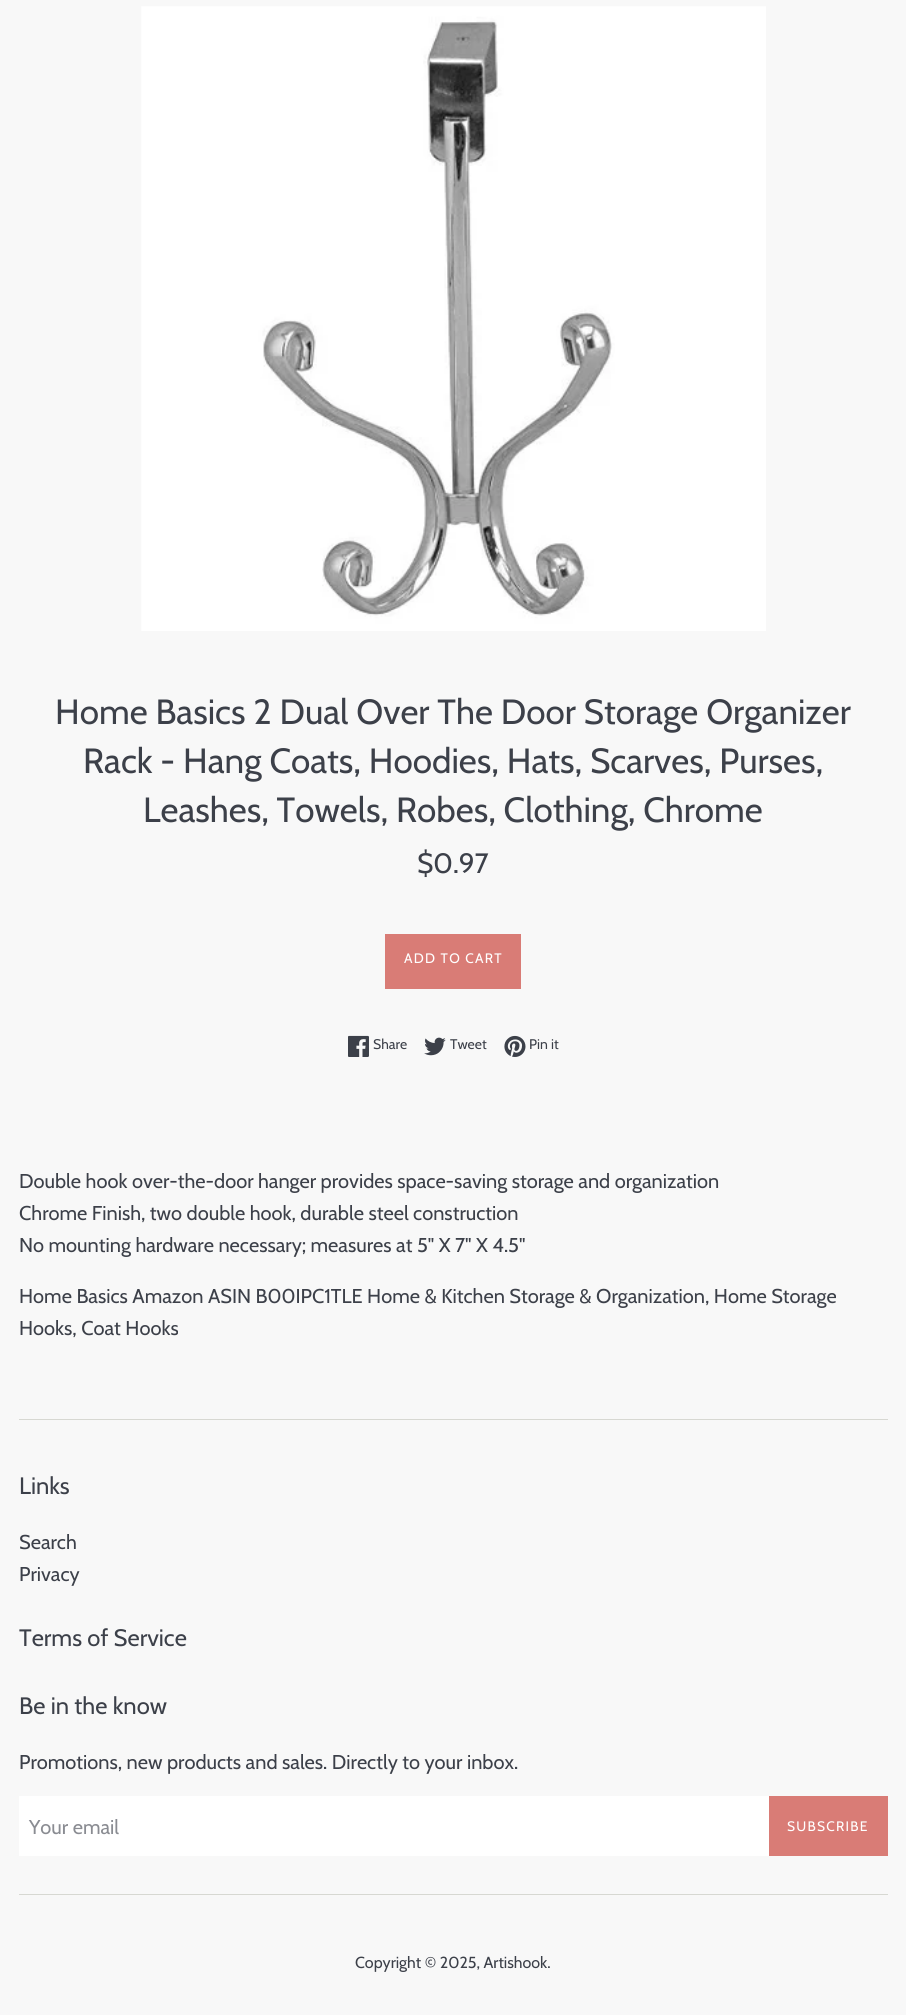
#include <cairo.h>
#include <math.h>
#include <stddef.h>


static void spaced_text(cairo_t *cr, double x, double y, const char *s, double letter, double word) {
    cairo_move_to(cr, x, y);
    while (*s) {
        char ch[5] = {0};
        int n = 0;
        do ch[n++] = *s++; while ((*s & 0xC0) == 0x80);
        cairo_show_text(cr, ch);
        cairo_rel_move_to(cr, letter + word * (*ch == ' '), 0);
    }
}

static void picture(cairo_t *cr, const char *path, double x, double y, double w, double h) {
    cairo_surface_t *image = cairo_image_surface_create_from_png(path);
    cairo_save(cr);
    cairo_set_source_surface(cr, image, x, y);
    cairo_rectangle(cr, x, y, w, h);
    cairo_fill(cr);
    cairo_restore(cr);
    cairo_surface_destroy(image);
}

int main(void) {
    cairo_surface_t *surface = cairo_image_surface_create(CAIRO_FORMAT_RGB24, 906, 2015);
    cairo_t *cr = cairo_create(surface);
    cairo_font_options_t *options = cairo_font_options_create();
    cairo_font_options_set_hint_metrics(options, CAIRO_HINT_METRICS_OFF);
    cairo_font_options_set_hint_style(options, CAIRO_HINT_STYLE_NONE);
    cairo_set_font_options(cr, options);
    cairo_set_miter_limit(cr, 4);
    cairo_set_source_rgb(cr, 0.969, 0.969, 0.969);
    cairo_paint(cr);
    picture(cr, "img1.png", 141, 6, 625, 625);
    cairo_select_font_face(cr, "Cabin", CAIRO_FONT_SLANT_NORMAL, CAIRO_FONT_WEIGHT_NORMAL);
    cairo_set_font_size(cr, 35);
    cairo_set_source_rgb(cr, 0.235, 0.251, 0.286);
    cairo_move_to(cr, 55, 724);
    cairo_show_text(cr, "Home Basics 2 Dual Over The Door Storage Organizer");
    cairo_move_to(cr, 83, 773);
    cairo_show_text(cr, "Rack - Hang Coats, Hoodies, Hats, Scarves, Purses,");
    cairo_move_to(cr, 143, 822);
    cairo_show_text(cr, "Leashes, Towels, Robes, Clothing, Chrome");
    cairo_set_font_size(cr, 28);
    cairo_move_to(cr, 417, 873);
    cairo_show_text(cr, "$0.97");
    cairo_set_source_rgb(cr, 0.851, 0.486, 0.463);
    cairo_rectangle(cr, 385, 934, 136, 55);
    cairo_fill(cr);
    cairo_set_font_size(cr, 13.75);
    cairo_set_source_rgb(cr, 1, 1, 1);
    spaced_text(cr, 404, 963, "ADD TO CART", 1.25, 0);
    picture(cr, "img2.png", 348, 1035, 21, 22);
    cairo_set_font_size(cr, 14);
    cairo_set_source_rgb(cr, 0.235, 0.251, 0.286);
    cairo_move_to(cr, 373, 1049);
    cairo_show_text(cr, "Share");
    picture(cr, "img3.png", 424, 1037, 22, 19);
    cairo_move_to(cr, 450, 1049);
    cairo_show_text(cr, "Tweet");
    picture(cr, "img4.png", 504, 1035, 22, 22);
    cairo_move_to(cr, 529, 1049);
    cairo_show_text(cr, "Pin it");
    cairo_set_font_size(cr, 20);
    cairo_move_to(cr, 19, 1188);
    cairo_show_text(cr, "Double hook over-the-door hanger provides space-saving storage and organization");
    cairo_move_to(cr, 19, 1220);
    cairo_show_text(cr, "Chrome Finish, two double hook, durable steel construction");
    cairo_move_to(cr, 19, 1252);
    cairo_show_text(cr, "No mounting hardware necessary; measures at 5\" X 7\" X 4.5\"");
    cairo_move_to(cr, 19, 1303);
    cairo_show_text(cr, "Home Basics Amazon ASIN B00IPC1TLE Home & Kitchen Storage & Organization, Home Storage");
    cairo_move_to(cr, 19, 1335);
    cairo_show_text(cr, "Hooks, Coat Hooks");
    cairo_set_source_rgb(cr, 0.843, 0.847, 0.824);
    cairo_rectangle(cr, 19, 1419, 869, 1);
    cairo_fill(cr);
    cairo_set_font_size(cr, 23.75);
    cairo_set_source_rgb(cr, 0.235, 0.251, 0.286);
    cairo_move_to(cr, 19, 1494);
    cairo_show_text(cr, "Links");
    cairo_set_font_size(cr, 20);
    cairo_move_to(cr, 19, 1549);
    cairo_show_text(cr, "Search");
    cairo_move_to(cr, 19, 1581);
    cairo_show_text(cr, "Privacy");
    cairo_set_font_size(cr, 23.75);
    cairo_move_to(cr, 19, 1646);
    cairo_show_text(cr, "Terms of Service");
    cairo_move_to(cr, 19, 1714);
    cairo_show_text(cr, "Be in the know");
    cairo_set_font_size(cr, 20);
    cairo_move_to(cr, 19, 1769);
    cairo_show_text(cr, "Promotions, new products and sales. Directly to your inbox.");
    cairo_set_source_rgb(cr, 1, 1, 1);
    cairo_rectangle(cr, 19, 1796, 750, 60);
    cairo_fill(cr);
    cairo_set_source_rgb(cr, 0.541, 0.549, 0.573);
    cairo_move_to(cr, 29, 1834);
    cairo_show_text(cr, "Your email");
    cairo_set_source_rgb(cr, 0.851, 0.486, 0.463);
    cairo_rectangle(cr, 769, 1796, 119, 60);
    cairo_fill(cr);
    cairo_set_font_size(cr, 13.75);
    cairo_set_source_rgb(cr, 1, 1, 1);
    spaced_text(cr, 787, 1831, "SUBSCRIBE", 1.25, 0);
    cairo_set_source_rgb(cr, 0.843, 0.847, 0.824);
    cairo_rectangle(cr, 19, 1894, 869, 1);
    cairo_fill(cr);
    cairo_set_font_size(cr, 16);
    cairo_set_source_rgb(cr, 0.235, 0.251, 0.286);
    cairo_move_to(cr, 355, 1968);
    cairo_show_text(cr, "Copyright © 2025, Artishook.");
    cairo_surface_write_to_png(surface, "page.png");
    cairo_font_options_destroy(options);
    cairo_destroy(cr);
    cairo_surface_destroy(surface);
    return 0;
}
